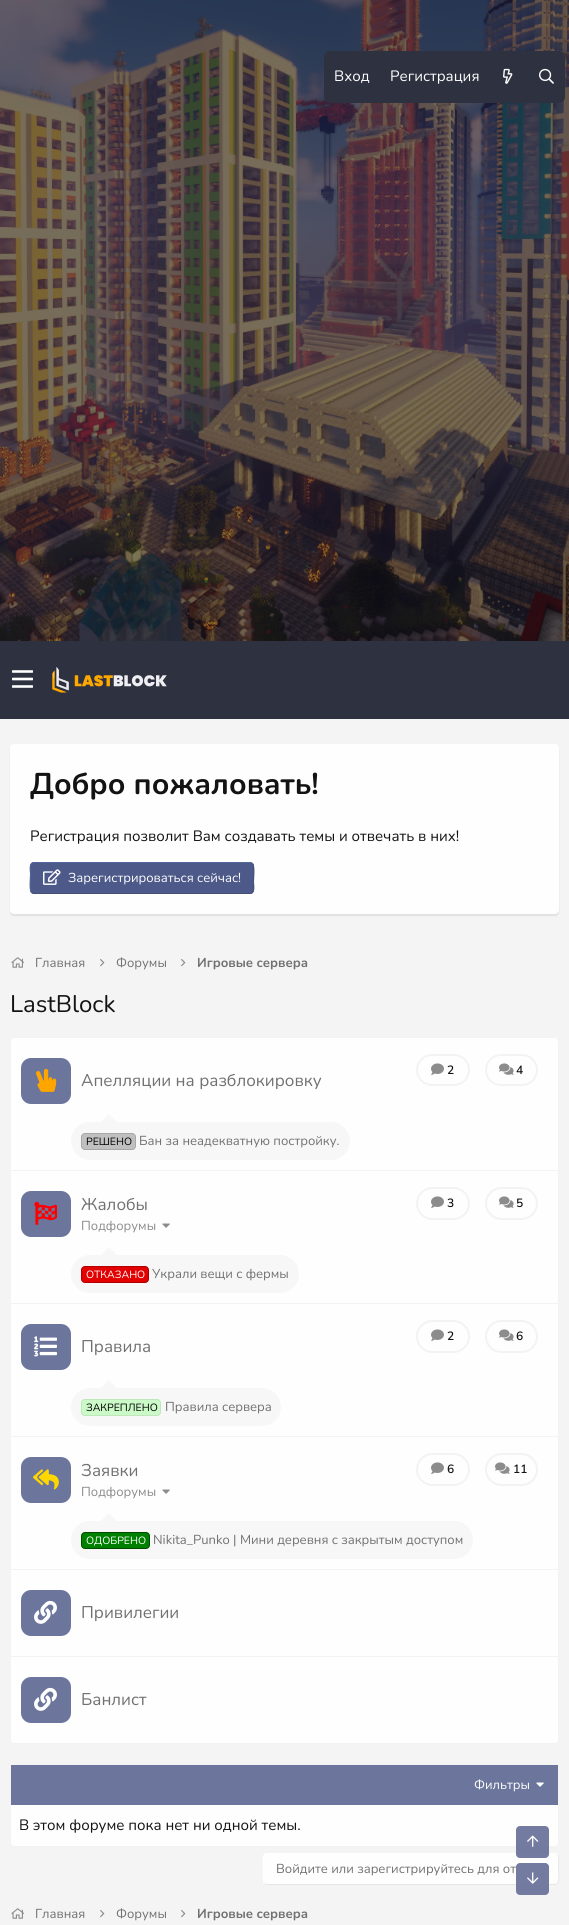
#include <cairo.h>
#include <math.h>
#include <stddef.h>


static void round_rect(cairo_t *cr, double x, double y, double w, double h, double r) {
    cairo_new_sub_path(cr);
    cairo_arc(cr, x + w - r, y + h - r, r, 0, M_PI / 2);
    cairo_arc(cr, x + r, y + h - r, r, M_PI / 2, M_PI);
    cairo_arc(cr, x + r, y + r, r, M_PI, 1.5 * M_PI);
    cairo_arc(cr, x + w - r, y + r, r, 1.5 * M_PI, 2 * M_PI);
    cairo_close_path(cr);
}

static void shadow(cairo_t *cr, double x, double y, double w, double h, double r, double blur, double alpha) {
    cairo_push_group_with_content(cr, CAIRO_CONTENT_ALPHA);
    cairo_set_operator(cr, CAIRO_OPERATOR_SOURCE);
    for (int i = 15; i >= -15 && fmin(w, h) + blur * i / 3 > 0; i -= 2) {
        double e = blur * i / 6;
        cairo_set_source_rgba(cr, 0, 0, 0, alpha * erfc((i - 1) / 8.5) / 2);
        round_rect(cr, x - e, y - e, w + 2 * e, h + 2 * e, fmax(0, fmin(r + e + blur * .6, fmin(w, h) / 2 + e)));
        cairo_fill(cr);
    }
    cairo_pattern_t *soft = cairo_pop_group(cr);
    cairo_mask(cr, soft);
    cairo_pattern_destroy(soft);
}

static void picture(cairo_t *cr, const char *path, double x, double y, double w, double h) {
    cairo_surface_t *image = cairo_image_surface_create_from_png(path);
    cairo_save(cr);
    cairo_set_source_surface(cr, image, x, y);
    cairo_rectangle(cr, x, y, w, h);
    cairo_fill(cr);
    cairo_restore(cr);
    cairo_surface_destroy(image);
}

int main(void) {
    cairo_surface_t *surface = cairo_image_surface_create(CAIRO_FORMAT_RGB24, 569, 1925);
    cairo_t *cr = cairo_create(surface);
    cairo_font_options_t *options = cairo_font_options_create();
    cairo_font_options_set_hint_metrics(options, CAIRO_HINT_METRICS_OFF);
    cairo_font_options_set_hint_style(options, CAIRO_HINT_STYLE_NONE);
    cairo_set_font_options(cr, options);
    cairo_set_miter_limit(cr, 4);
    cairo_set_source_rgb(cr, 1, 1, 1);
    cairo_paint(cr);
    picture(cr, "img1.png", 0, 0, 569, 641);
    cairo_set_source_rgb(cr, 0.18, 0.192, 0.247);
    round_rect(cr, 324, 51, 241, 52, 6);
    cairo_fill(cr);
    cairo_select_font_face(cr, "Nunito", CAIRO_FONT_SLANT_NORMAL, CAIRO_FONT_WEIGHT_NORMAL);
    cairo_set_font_size(cr, 15);
    cairo_set_source_rgb(cr, 0.996, 0.996, 0.996);
    cairo_move_to(cr, 334, 81);
    cairo_show_text(cr, "Вход");
    cairo_move_to(cr, 390, 81);
    cairo_show_text(cr, "Регистрация");
    picture(cr, "img2.png", 503, 68, 10, 16);
    picture(cr, "img3.png", 539, 68, 15, 16);
    cairo_set_source_rgb(cr, 0.18, 0.192, 0.247);
    cairo_rectangle(cr, 0, 641, 569, 78);
    cairo_fill(cr);
    picture(cr, "img4.png", 12, 670, 21, 18);
    picture(cr, "img5.png", 52, 667, 115, 26);
    cairo_set_source_rgb(cr, 0.957, 0.957, 0.957);
    cairo_rectangle(cr, 0, 719, 569, 1206);
    cairo_fill(cr);
    cairo_set_source_rgb(cr, 0, 0, 0);
    shadow(cr, 10, 746, 549, 170, 4, 0.5, 0.08);
    cairo_set_source_rgb(cr, 0.996, 0.996, 0.996);
    round_rect(cr, 10, 744, 549, 170, 4);
    cairo_fill(cr);
    cairo_select_font_face(cr, "Nunito", CAIRO_FONT_SLANT_NORMAL, CAIRO_FONT_WEIGHT_BOLD);
    cairo_set_font_size(cr, 30);
    cairo_set_source_rgb(cr, 0.078, 0.078, 0.078);
    cairo_move_to(cr, 30, 794);
    cairo_show_text(cr, "Добро пожаловать!");
    cairo_select_font_face(cr, "Nunito", CAIRO_FONT_SLANT_NORMAL, CAIRO_FONT_WEIGHT_NORMAL);
    cairo_set_font_size(cr, 15);
    cairo_move_to(cr, 30, 841);
    cairo_show_text(cr, "Регистрация позволит Вам создавать темы и отвечать в них!");
    cairo_set_source_rgb(cr, 0.298, 0.349, 0.537);
    round_rect(cr, 30, 862, 224, 32, 4);
    cairo_fill(cr);
    cairo_new_path(cr);
    cairo_move_to(cr, 252.5, 863.5);
    cairo_curve_to(cr, 255, 866, 253.5, 878.5, 253.5, 882);
    cairo_curve_to(cr, 253.5, 884.5, 255.5, 893.5, 250, 893.5);
    cairo_line_to(cr, 34, 893.5);
    cairo_line_to(cr, 31.5, 892.5);
    cairo_set_source_rgb(cr, 0.263, 0.306, 0.475);
    cairo_set_line_width(cr, 1);
    cairo_stroke(cr);
    cairo_new_path(cr);
    cairo_move_to(cr, 31.5, 892.5);
    cairo_curve_to(cr, 29, 890, 30.5, 877.5, 30.5, 874);
    cairo_curve_to(cr, 30.5, 871.5, 28.5, 862.5, 34, 862.5);
    cairo_line_to(cr, 250, 862.5);
    cairo_line_to(cr, 252.5, 863.5);
    cairo_set_source_rgb(cr, 0.333, 0.392, 0.6);
    cairo_stroke(cr);
    picture(cr, "img6.png", 43, 869, 18, 16);
    cairo_set_font_size(cr, 13);
    cairo_set_source_rgb(cr, 0.996, 0.996, 0.996);
    cairo_move_to(cr, 68, 882);
    cairo_show_text(cr, "Зарегистрироваться сейчас!");
    picture(cr, "img7.png", 11, 957, 13, 11);
    cairo_set_source_rgb(cr, 0.443, 0.443, 0.443);
    cairo_move_to(cr, 35, 967);
    cairo_show_text(cr, "Главная");
    picture(cr, "img8.png", 100, 959, 5, 8);
    cairo_move_to(cr, 116, 967);
    cairo_show_text(cr, "Форумы");
    picture(cr, "img8.png", 181, 959, 5, 8);
    cairo_select_font_face(cr, "Nunito", CAIRO_FONT_SLANT_NORMAL, CAIRO_FONT_WEIGHT_BOLD);
    cairo_move_to(cr, 197, 967);
    cairo_show_text(cr, "Игровые сервера");
    cairo_select_font_face(cr, "Nunito", CAIRO_FONT_SLANT_NORMAL, CAIRO_FONT_WEIGHT_NORMAL);
    cairo_set_font_size(cr, 24);
    cairo_set_source_rgb(cr, 0.078, 0.078, 0.078);
    cairo_move_to(cr, 10, 1012);
    cairo_show_text(cr, "LastBlock");
    cairo_set_source_rgb(cr, 0.996, 0.996, 0.996);
    round_rect(cr, 10.5, 1037.5, 548, 706, 3.5);
    cairo_fill_preserve(cr);
    cairo_set_source_rgb(cr, 0.953, 0.953, 0.953);
    cairo_stroke(cr);
    cairo_set_source_rgb(cr, 0.424, 0.463, 0.612);
    round_rect(cr, 21, 1058, 50, 46, 10);
    cairo_fill(cr);
    picture(cr, "img9.png", 36, 1068, 21, 24);
    round_rect(cr, 417, 1055, 52, 30, 15);
    cairo_set_source_rgb(cr, 0.953, 0.953, 0.953);
    cairo_set_line_width(cr, 2);
    cairo_stroke(cr);
    picture(cr, "img10.png", 431, 1063, 13, 12);
    cairo_select_font_face(cr, "Nunito SemiBold", CAIRO_FONT_SLANT_NORMAL, CAIRO_FONT_WEIGHT_NORMAL);
    cairo_set_font_size(cr, 12);
    cairo_set_source_rgb(cr, 0.078, 0.078, 0.078);
    cairo_move_to(cr, 447, 1074);
    cairo_show_text(cr, "2");
    round_rect(cr, 486, 1055, 51, 30, 15);
    cairo_set_source_rgb(cr, 0.953, 0.953, 0.953);
    cairo_stroke(cr);
    picture(cr, "img11.png", 499, 1063, 15, 12);
    cairo_set_source_rgb(cr, 0.078, 0.078, 0.078);
    cairo_move_to(cr, 516, 1074);
    cairo_show_text(cr, "4");
    cairo_select_font_face(cr, "Nunito", CAIRO_FONT_SLANT_NORMAL, CAIRO_FONT_WEIGHT_NORMAL);
    cairo_set_font_size(cr, 17);
    cairo_set_source_rgb(cr, 0.443, 0.443, 0.443);
    cairo_move_to(cr, 81, 1086);
    cairo_show_text(cr, "Апелляции на разблокировку");
    cairo_set_source_rgb(cr, 0.965, 0.965, 0.965);
    round_rect(cr, 71, 1122, 279, 38, 19);
    cairo_fill(cr);
    cairo_new_path(cr);
    cairo_move_to(cr, 117, 1122);
    cairo_line_to(cr, 101, 1122);
    cairo_line_to(cr, 109, 1114);
    cairo_close_path(cr);
    cairo_fill(cr);
    cairo_set_source_rgb(cr, 0.753, 0.753, 0.753);
    round_rect(cr, 81.5, 1133.5, 54, 16, 3.5);
    cairo_fill_preserve(cr);
    cairo_set_source_rgb(cr, 0.655, 0.655, 0.655);
    cairo_set_line_width(cr, 1);
    cairo_stroke(cr);
    cairo_set_font_size(cr, 10.5);
    cairo_set_source_rgb(cr, 0, 0, 0);
    cairo_move_to(cr, 86, 1145);
    cairo_show_text(cr, "РЕШЕНО");
    cairo_set_font_size(cr, 13);
    cairo_set_source_rgb(cr, 0.443, 0.443, 0.443);
    cairo_move_to(cr, 139, 1145);
    cairo_show_text(cr, "Бан за неадекватную постройку.");
    cairo_set_source_rgb(cr, 0.953, 0.953, 0.953);
    cairo_rectangle(cr, 11, 1170, 547, 1);
    cairo_fill(cr);
    cairo_set_source_rgb(cr, 0.424, 0.463, 0.612);
    round_rect(cr, 21, 1191, 50, 46, 10);
    cairo_fill(cr);
    picture(cr, "img12.png", 34, 1201, 23, 24);
    cairo_set_font_size(cr, 17);
    cairo_set_source_rgb(cr, 0.443, 0.443, 0.443);
    cairo_move_to(cr, 81, 1210);
    cairo_show_text(cr, "Жалобы");
    cairo_set_font_size(cr, 13);
    cairo_set_source_rgb(cr, 0.549, 0.549, 0.549);
    cairo_move_to(cr, 81, 1230);
    cairo_show_text(cr, "Подфорумы");
    picture(cr, "img13.png", 162, 1223, 8, 5);
    round_rect(cr, 417, 1188, 52, 31, 15.5);
    cairo_set_source_rgb(cr, 0.953, 0.953, 0.953);
    cairo_set_line_width(cr, 2);
    cairo_stroke(cr);
    picture(cr, "img10.png", 431, 1196, 13, 12);
    cairo_select_font_face(cr, "Nunito SemiBold", CAIRO_FONT_SLANT_NORMAL, CAIRO_FONT_WEIGHT_NORMAL);
    cairo_set_font_size(cr, 12);
    cairo_set_source_rgb(cr, 0.078, 0.078, 0.078);
    cairo_move_to(cr, 447, 1207);
    cairo_show_text(cr, "3");
    round_rect(cr, 486, 1188, 51, 31, 15.5);
    cairo_set_source_rgb(cr, 0.953, 0.953, 0.953);
    cairo_stroke(cr);
    picture(cr, "img11.png", 499, 1196, 15, 12);
    cairo_set_source_rgb(cr, 0.078, 0.078, 0.078);
    cairo_move_to(cr, 516, 1207);
    cairo_show_text(cr, "5");
    cairo_set_source_rgb(cr, 0.965, 0.965, 0.965);
    round_rect(cr, 71, 1255, 228, 38, 19);
    cairo_fill(cr);
    cairo_new_path(cr);
    cairo_move_to(cr, 117, 1255);
    cairo_line_to(cr, 101, 1255);
    cairo_line_to(cr, 109, 1247);
    cairo_close_path(cr);
    cairo_fill(cr);
    cairo_set_source_rgb(cr, 0.886, 0, 0);
    round_rect(cr, 81.5, 1266.5, 67, 16, 3.5);
    cairo_fill_preserve(cr);
    cairo_set_source_rgb(cr, 0.686, 0, 0);
    cairo_set_line_width(cr, 1);
    cairo_stroke(cr);
    cairo_select_font_face(cr, "Nunito", CAIRO_FONT_SLANT_NORMAL, CAIRO_FONT_WEIGHT_NORMAL);
    cairo_set_font_size(cr, 10.5);
    cairo_set_source_rgb(cr, 0.996, 0.996, 0.996);
    cairo_move_to(cr, 86, 1278);
    cairo_show_text(cr, "ОТКАЗАНО");
    cairo_set_font_size(cr, 13);
    cairo_set_source_rgb(cr, 0.443, 0.443, 0.443);
    cairo_move_to(cr, 152, 1278);
    cairo_show_text(cr, "Украли вещи с фермы");
    cairo_set_source_rgb(cr, 0.953, 0.953, 0.953);
    cairo_rectangle(cr, 11, 1303, 547, 1);
    cairo_fill(cr);
    cairo_set_source_rgb(cr, 0.424, 0.463, 0.612);
    round_rect(cr, 21, 1324, 50, 46, 10);
    cairo_fill(cr);
    picture(cr, "img14.png", 34, 1336, 23, 21);
    round_rect(cr, 417, 1321, 52, 31, 15.5);
    cairo_set_source_rgb(cr, 0.953, 0.953, 0.953);
    cairo_set_line_width(cr, 2);
    cairo_stroke(cr);
    picture(cr, "img10.png", 431, 1329, 13, 12);
    cairo_select_font_face(cr, "Nunito SemiBold", CAIRO_FONT_SLANT_NORMAL, CAIRO_FONT_WEIGHT_NORMAL);
    cairo_set_font_size(cr, 12);
    cairo_set_source_rgb(cr, 0.078, 0.078, 0.078);
    cairo_move_to(cr, 447, 1340);
    cairo_show_text(cr, "2");
    round_rect(cr, 486, 1321, 51, 31, 15.5);
    cairo_set_source_rgb(cr, 0.953, 0.953, 0.953);
    cairo_stroke(cr);
    picture(cr, "img11.png", 499, 1329, 15, 12);
    cairo_set_source_rgb(cr, 0.078, 0.078, 0.078);
    cairo_move_to(cr, 516, 1340);
    cairo_show_text(cr, "6");
    cairo_select_font_face(cr, "Nunito", CAIRO_FONT_SLANT_NORMAL, CAIRO_FONT_WEIGHT_NORMAL);
    cairo_set_font_size(cr, 17);
    cairo_set_source_rgb(cr, 0.443, 0.443, 0.443);
    cairo_move_to(cr, 81, 1352);
    cairo_show_text(cr, "Правила");
    cairo_set_source_rgb(cr, 0.965, 0.965, 0.965);
    round_rect(cr, 71, 1388, 210, 38, 19);
    cairo_fill(cr);
    cairo_new_path(cr);
    cairo_move_to(cr, 117, 1388);
    cairo_line_to(cr, 101, 1388);
    cairo_line_to(cr, 109, 1380);
    cairo_close_path(cr);
    cairo_fill(cr);
    cairo_set_source_rgb(cr, 0.8, 0.976, 0.784);
    round_rect(cr, 81.5, 1399.5, 79, 16, 3.5);
    cairo_fill_preserve(cr);
    cairo_set_source_rgb(cr, 0.745, 0.91, 0.729);
    cairo_set_line_width(cr, 1);
    cairo_stroke(cr);
    cairo_set_font_size(cr, 10.5);
    cairo_set_source_rgb(cr, 0, 0, 0);
    cairo_move_to(cr, 86, 1411);
    cairo_show_text(cr, "ЗАКРЕПЛЕНО");
    cairo_set_font_size(cr, 13);
    cairo_set_source_rgb(cr, 0.443, 0.443, 0.443);
    cairo_move_to(cr, 165, 1411);
    cairo_show_text(cr, "Правила сервера");
    cairo_set_source_rgb(cr, 0.953, 0.953, 0.953);
    cairo_rectangle(cr, 11, 1436, 547, 1);
    cairo_fill(cr);
    cairo_set_source_rgb(cr, 0.424, 0.463, 0.612);
    round_rect(cr, 21, 1457, 50, 46, 10);
    cairo_fill(cr);
    picture(cr, "img15.png", 33, 1469, 26, 21);
    cairo_set_font_size(cr, 17);
    cairo_set_source_rgb(cr, 0.443, 0.443, 0.443);
    cairo_move_to(cr, 81, 1476);
    cairo_show_text(cr, "Заявки");
    cairo_set_font_size(cr, 13);
    cairo_set_source_rgb(cr, 0.549, 0.549, 0.549);
    cairo_move_to(cr, 81, 1496);
    cairo_show_text(cr, "Подфорумы");
    picture(cr, "img13.png", 162, 1489, 8, 5);
    round_rect(cr, 417, 1454, 52, 31, 15.5);
    cairo_set_source_rgb(cr, 0.953, 0.953, 0.953);
    cairo_set_line_width(cr, 2);
    cairo_stroke(cr);
    picture(cr, "img10.png", 431, 1462, 13, 12);
    cairo_select_font_face(cr, "Nunito SemiBold", CAIRO_FONT_SLANT_NORMAL, CAIRO_FONT_WEIGHT_NORMAL);
    cairo_set_font_size(cr, 12);
    cairo_set_source_rgb(cr, 0.078, 0.078, 0.078);
    cairo_move_to(cr, 447, 1473);
    cairo_show_text(cr, "6");
    round_rect(cr, 486, 1454, 51, 31, 15.5);
    cairo_set_source_rgb(cr, 0.953, 0.953, 0.953);
    cairo_stroke(cr);
    picture(cr, "img11.png", 495, 1462, 15, 12);
    cairo_set_source_rgb(cr, 0.078, 0.078, 0.078);
    cairo_move_to(cr, 513, 1473);
    cairo_show_text(cr, "11");
    cairo_set_source_rgb(cr, 0.965, 0.965, 0.965);
    round_rect(cr, 71, 1521, 402, 38, 19);
    cairo_fill(cr);
    cairo_new_path(cr);
    cairo_move_to(cr, 117, 1521);
    cairo_line_to(cr, 101, 1521);
    cairo_line_to(cr, 109, 1513);
    cairo_close_path(cr);
    cairo_fill(cr);
    cairo_set_source_rgb(cr, 0, 0.502, 0);
    round_rect(cr, 81.5, 1532.5, 68, 16, 3.5);
    cairo_fill_preserve(cr);
    cairo_set_source_rgb(cr, 0, 0.302, 0);
    cairo_set_line_width(cr, 1);
    cairo_stroke(cr);
    cairo_select_font_face(cr, "Nunito", CAIRO_FONT_SLANT_NORMAL, CAIRO_FONT_WEIGHT_NORMAL);
    cairo_set_font_size(cr, 10.5);
    cairo_set_source_rgb(cr, 0.996, 0.996, 0.996);
    cairo_move_to(cr, 86, 1544);
    cairo_show_text(cr, "ОДОБРЕНО");
    cairo_set_font_size(cr, 13);
    cairo_set_source_rgb(cr, 0.443, 0.443, 0.443);
    cairo_move_to(cr, 153, 1544);
    cairo_show_text(cr, "Nikita_Punko | Мини деревня с закрытым доступом");
    cairo_set_source_rgb(cr, 0.953, 0.953, 0.953);
    cairo_rectangle(cr, 11, 1569, 547, 1);
    cairo_fill(cr);
    cairo_set_source_rgb(cr, 0.424, 0.463, 0.612);
    round_rect(cr, 21, 1590, 50, 46, 10);
    cairo_fill(cr);
    picture(cr, "img16.png", 34, 1600, 23, 24);
    cairo_set_font_size(cr, 17);
    cairo_set_source_rgb(cr, 0.443, 0.443, 0.443);
    cairo_move_to(cr, 81, 1618);
    cairo_show_text(cr, "Привилегии");
    cairo_set_source_rgb(cr, 0.953, 0.953, 0.953);
    cairo_rectangle(cr, 11, 1656, 547, 1);
    cairo_fill(cr);
    cairo_set_source_rgb(cr, 0.424, 0.463, 0.612);
    round_rect(cr, 21, 1677, 50, 46, 10);
    cairo_fill(cr);
    picture(cr, "img16.png", 34, 1687, 23, 24);
    cairo_set_source_rgb(cr, 0.443, 0.443, 0.443);
    cairo_move_to(cr, 81, 1705);
    cairo_show_text(cr, "Банлист");
    cairo_set_source_rgb(cr, 0.996, 0.996, 0.996);
    round_rect(cr, 10.5, 1764.5, 548, 82, 3.5);
    cairo_fill_preserve(cr);
    cairo_set_source_rgb(cr, 0.953, 0.953, 0.953);
    cairo_stroke(cr);
    cairo_set_source_rgb(cr, 0.424, 0.463, 0.612);
    cairo_rectangle(cr, 11, 1765, 547, 40);
    cairo_fill(cr);
    cairo_set_font_size(cr, 13);
    cairo_set_source_rgb(cr, 0.996, 0.996, 0.996);
    cairo_move_to(cr, 474, 1789);
    cairo_show_text(cr, "Фильтры");
    picture(cr, "img17.png", 536, 1782, 8, 5);
    cairo_set_font_size(cr, 15);
    cairo_set_source_rgb(cr, 0.078, 0.078, 0.078);
    cairo_move_to(cr, 19, 1830);
    cairo_show_text(cr, "В этом форуме пока нет ни одной темы.");
    cairo_set_source_rgb(cr, 0.996, 0.996, 0.996);
    round_rect(cr, 263, 1853, 296, 32, 4);
    cairo_fill(cr);
    cairo_new_path(cr);
    cairo_move_to(cr, 557.5, 1854.5);
    cairo_curve_to(cr, 559.5, 1857, 558.5, 1866, 558.5, 1869);
    cairo_curve_to(cr, 558.5, 1872, 560, 1881.5, 557, 1883.5);
    cairo_line_to(cr, 555.5, 1884.5);
    cairo_line_to(cr, 267, 1884.5);
    cairo_line_to(cr, 264.5, 1883.5);
    cairo_set_source_rgb(cr, 0.902, 0.902, 0.902);
    cairo_stroke(cr);
    cairo_new_path(cr);
    cairo_move_to(cr, 264.5, 1883.5);
    cairo_curve_to(cr, 262.5, 1881, 263.5, 1872, 263.5, 1869);
    cairo_curve_to(cr, 263.5, 1866, 262, 1856.5, 265, 1854.5);
    cairo_line_to(cr, 266.5, 1853.5);
    cairo_line_to(cr, 555, 1853.5);
    cairo_line_to(cr, 557.5, 1854.5);
    cairo_set_source_rgb(cr, 1, 1, 1);
    cairo_stroke(cr);
    cairo_set_font_size(cr, 13);
    cairo_set_source_rgb(cr, 0.443, 0.443, 0.443);
    cairo_move_to(cr, 276, 1873);
    cairo_show_text(cr, "Войдите или зарегистрируйтесь для от");
    picture(cr, "img7.png", 11, 1908, 13, 11);
    cairo_move_to(cr, 35, 1918);
    cairo_show_text(cr, "Главная");
    picture(cr, "img8.png", 100, 1910, 5, 8);
    cairo_move_to(cr, 116, 1918);
    cairo_show_text(cr, "Форумы");
    picture(cr, "img8.png", 181, 1910, 5, 8);
    cairo_select_font_face(cr, "Nunito", CAIRO_FONT_SLANT_NORMAL, CAIRO_FONT_WEIGHT_BOLD);
    cairo_move_to(cr, 197, 1918);
    cairo_show_text(cr, "Игровые сервера");
    cairo_set_source_rgba(cr, 0.424, 0.463, 0.612, 0.95);
    round_rect(cr, 516, 1826, 33, 32, 4);
    cairo_fill(cr);
    picture(cr, "img18.png", 527, 1835, 12, 12);
    round_rect(cr, 516, 1863, 33, 32, 4);
    cairo_fill(cr);
    picture(cr, "img19.png", 527, 1872, 12, 12);
    cairo_surface_write_to_png(surface, "page.png");
    cairo_font_options_destroy(options);
    cairo_destroy(cr);
    cairo_surface_destroy(surface);
    return 0;
}
